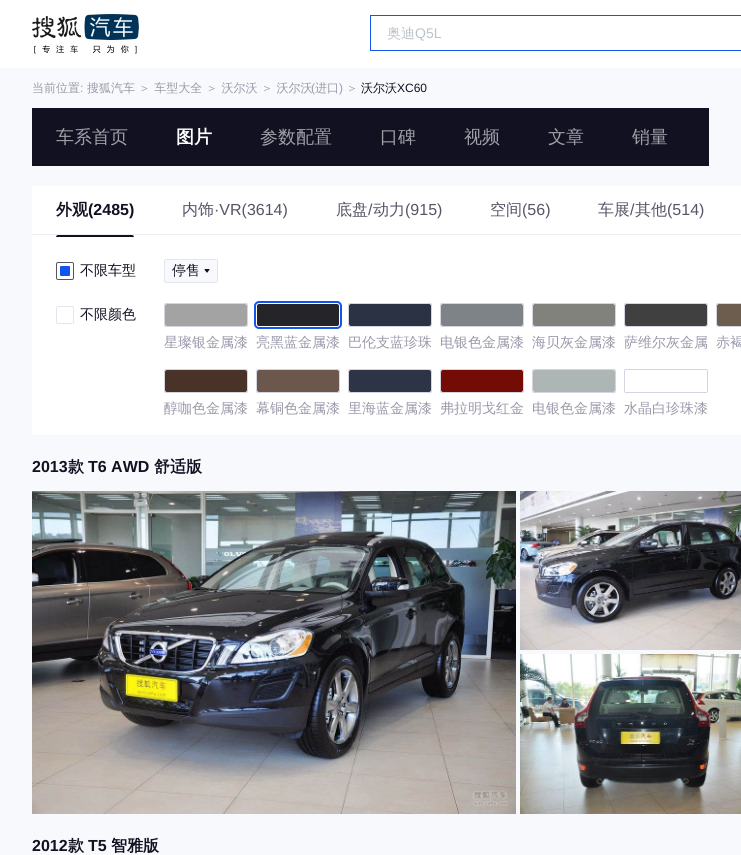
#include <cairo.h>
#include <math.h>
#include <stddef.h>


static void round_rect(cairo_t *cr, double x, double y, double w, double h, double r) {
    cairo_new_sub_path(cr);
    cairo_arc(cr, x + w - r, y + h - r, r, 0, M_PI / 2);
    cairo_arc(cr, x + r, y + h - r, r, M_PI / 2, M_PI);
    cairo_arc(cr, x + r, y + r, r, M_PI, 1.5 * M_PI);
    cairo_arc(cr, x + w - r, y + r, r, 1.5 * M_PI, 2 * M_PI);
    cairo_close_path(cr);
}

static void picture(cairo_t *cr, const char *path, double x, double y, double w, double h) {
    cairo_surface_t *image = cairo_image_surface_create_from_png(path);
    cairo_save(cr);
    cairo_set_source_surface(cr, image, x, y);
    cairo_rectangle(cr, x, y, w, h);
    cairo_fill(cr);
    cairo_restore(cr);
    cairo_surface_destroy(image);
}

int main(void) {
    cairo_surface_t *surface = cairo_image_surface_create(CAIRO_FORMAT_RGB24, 741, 855);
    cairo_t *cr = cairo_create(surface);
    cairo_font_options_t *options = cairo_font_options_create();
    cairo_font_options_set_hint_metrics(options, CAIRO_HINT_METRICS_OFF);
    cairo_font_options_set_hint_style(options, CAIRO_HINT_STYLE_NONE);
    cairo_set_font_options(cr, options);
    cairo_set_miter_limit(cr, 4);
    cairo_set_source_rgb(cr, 0.969, 0.973, 0.988);
    cairo_paint(cr);
    cairo_set_source_rgb(cr, 1, 1, 1);
    cairo_rectangle(cr, 0, 0, 741, 68);
    cairo_fill(cr);
    picture(cr, "img1.png", 32, 14, 107, 40);
    cairo_rectangle(cr, 370.5, 15.5, 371, 35);
    cairo_set_source_rgb(cr, 0.067, 0.333, 0.933);
    cairo_set_line_width(cr, 1);
    cairo_stroke(cr);
    cairo_select_font_face(cr, "WenQuanYi Zen Hei Medium", CAIRO_FONT_SLANT_NORMAL, CAIRO_FONT_WEIGHT_NORMAL);
    cairo_set_font_size(cr, 14);
    cairo_set_source_rgb(cr, 0.733, 0.761, 0.8);
    cairo_move_to(cr, 387, 38);
    cairo_show_text(cr, "奥迪");
    cairo_select_font_face(cr, "Liberation Sans", CAIRO_FONT_SLANT_NORMAL, CAIRO_FONT_WEIGHT_NORMAL);
    cairo_move_to(cr, 415, 38);
    cairo_show_text(cr, "Q5L");
    cairo_select_font_face(cr, "WenQuanYi Zen Hei Medium", CAIRO_FONT_SLANT_NORMAL, CAIRO_FONT_WEIGHT_NORMAL);
    cairo_set_font_size(cr, 12);
    cairo_set_source_rgb(cr, 0.6, 0.6, 0.667);
    cairo_move_to(cr, 32, 92);
    cairo_show_text(cr, "当前位置");
    cairo_select_font_face(cr, "Liberation Sans", CAIRO_FONT_SLANT_NORMAL, CAIRO_FONT_WEIGHT_NORMAL);
    cairo_move_to(cr, 80, 92);
    cairo_show_text(cr, ":");
    cairo_select_font_face(cr, "WenQuanYi Zen Hei Medium", CAIRO_FONT_SLANT_NORMAL, CAIRO_FONT_WEIGHT_NORMAL);
    cairo_move_to(cr, 87, 92);
    cairo_show_text(cr, "搜狐汽车 ＞ 车型大全 ＞ 沃尔沃 ＞ 沃尔沃");
    cairo_select_font_face(cr, "Liberation Sans", CAIRO_FONT_SLANT_NORMAL, CAIRO_FONT_WEIGHT_NORMAL);
    cairo_move_to(cr, 311, 92);
    cairo_show_text(cr, "(");
    cairo_select_font_face(cr, "WenQuanYi Zen Hei Medium", CAIRO_FONT_SLANT_NORMAL, CAIRO_FONT_WEIGHT_NORMAL);
    cairo_move_to(cr, 315, 92);
    cairo_show_text(cr, "进口");
    cairo_select_font_face(cr, "Liberation Sans", CAIRO_FONT_SLANT_NORMAL, CAIRO_FONT_WEIGHT_NORMAL);
    cairo_move_to(cr, 339, 92);
    cairo_show_text(cr, ")");
    cairo_select_font_face(cr, "WenQuanYi Zen Hei Medium", CAIRO_FONT_SLANT_NORMAL, CAIRO_FONT_WEIGHT_NORMAL);
    cairo_move_to(cr, 346, 92);
    cairo_show_text(cr, "＞");
    cairo_set_source_rgb(cr, 0.067, 0.067, 0.133);
    cairo_move_to(cr, 361, 92);
    cairo_show_text(cr, "沃尔沃");
    cairo_select_font_face(cr, "Liberation Sans", CAIRO_FONT_SLANT_NORMAL, CAIRO_FONT_WEIGHT_NORMAL);
    cairo_move_to(cr, 397, 92);
    cairo_show_text(cr, "XC60");
    cairo_rectangle(cr, 32, 108, 677, 58);
    cairo_fill(cr);
    cairo_select_font_face(cr, "WenQuanYi Zen Hei Medium", CAIRO_FONT_SLANT_NORMAL, CAIRO_FONT_WEIGHT_NORMAL);
    cairo_set_font_size(cr, 18);
    cairo_set_source_rgb(cr, 0.627, 0.627, 0.655);
    cairo_move_to(cr, 56, 143);
    cairo_show_text(cr, "车系首页");
    cairo_select_font_face(cr, "WenQuanYi Zen Hei", CAIRO_FONT_SLANT_NORMAL, CAIRO_FONT_WEIGHT_BOLD);
    cairo_set_source_rgb(cr, 1, 1, 1);
    cairo_move_to(cr, 176, 143);
    cairo_show_text(cr, "图片");
    cairo_select_font_face(cr, "WenQuanYi Zen Hei Medium", CAIRO_FONT_SLANT_NORMAL, CAIRO_FONT_WEIGHT_NORMAL);
    cairo_set_source_rgb(cr, 0.627, 0.627, 0.655);
    cairo_move_to(cr, 260, 143);
    cairo_show_text(cr, "参数配置");
    cairo_move_to(cr, 380, 143);
    cairo_show_text(cr, "口碑");
    cairo_move_to(cr, 464, 143);
    cairo_show_text(cr, "视频");
    cairo_move_to(cr, 548, 143);
    cairo_show_text(cr, "文章");
    cairo_move_to(cr, 632, 143);
    cairo_show_text(cr, "销量");
    cairo_set_source_rgb(cr, 1, 1, 1);
    cairo_rectangle(cr, 32, 186, 709, 249);
    cairo_fill(cr);
    cairo_set_source_rgb(cr, 0.933, 0.933, 0.941);
    cairo_rectangle(cr, 32, 234, 709, 1);
    cairo_fill(cr);
    cairo_select_font_face(cr, "WenQuanYi Zen Hei", CAIRO_FONT_SLANT_NORMAL, CAIRO_FONT_WEIGHT_BOLD);
    cairo_set_font_size(cr, 16);
    cairo_set_source_rgb(cr, 0.067, 0.067, 0.133);
    cairo_move_to(cr, 56, 215);
    cairo_show_text(cr, "外观");
    cairo_select_font_face(cr, "Liberation Sans", CAIRO_FONT_SLANT_NORMAL, CAIRO_FONT_WEIGHT_BOLD);
    cairo_move_to(cr, 88, 215);
    cairo_show_text(cr, "(2485)");
    cairo_new_path(cr);
    cairo_move_to(cr, 58, 235);
    cairo_line_to(cr, 132, 235);
    cairo_curve_to(cr, 133, 235, 134, 236, 134, 237);
    cairo_line_to(cr, 56, 237);
    cairo_curve_to(cr, 56, 236, 57, 235, 58, 235);
    cairo_close_path(cr);
    cairo_fill(cr);
    cairo_select_font_face(cr, "WenQuanYi Zen Hei Medium", CAIRO_FONT_SLANT_NORMAL, CAIRO_FONT_WEIGHT_NORMAL);
    cairo_set_source_rgb(cr, 0.333, 0.333, 0.4);
    cairo_move_to(cr, 182, 215);
    cairo_show_text(cr, "内饰");
    cairo_select_font_face(cr, "Liberation Sans", CAIRO_FONT_SLANT_NORMAL, CAIRO_FONT_WEIGHT_NORMAL);
    cairo_move_to(cr, 214, 215);
    cairo_show_text(cr, "·VR(3614)");
    cairo_select_font_face(cr, "WenQuanYi Zen Hei Medium", CAIRO_FONT_SLANT_NORMAL, CAIRO_FONT_WEIGHT_NORMAL);
    cairo_move_to(cr, 336, 215);
    cairo_show_text(cr, "底盘");
    cairo_select_font_face(cr, "Liberation Sans", CAIRO_FONT_SLANT_NORMAL, CAIRO_FONT_WEIGHT_NORMAL);
    cairo_move_to(cr, 368, 215);
    cairo_show_text(cr, "/");
    cairo_select_font_face(cr, "WenQuanYi Zen Hei Medium", CAIRO_FONT_SLANT_NORMAL, CAIRO_FONT_WEIGHT_NORMAL);
    cairo_move_to(cr, 373, 215);
    cairo_show_text(cr, "动力");
    cairo_select_font_face(cr, "Liberation Sans", CAIRO_FONT_SLANT_NORMAL, CAIRO_FONT_WEIGHT_NORMAL);
    cairo_move_to(cr, 405, 215);
    cairo_show_text(cr, "(915)");
    cairo_select_font_face(cr, "WenQuanYi Zen Hei Medium", CAIRO_FONT_SLANT_NORMAL, CAIRO_FONT_WEIGHT_NORMAL);
    cairo_move_to(cr, 490, 215);
    cairo_show_text(cr, "空间");
    cairo_select_font_face(cr, "Liberation Sans", CAIRO_FONT_SLANT_NORMAL, CAIRO_FONT_WEIGHT_NORMAL);
    cairo_move_to(cr, 522, 215);
    cairo_show_text(cr, "(56)");
    cairo_select_font_face(cr, "WenQuanYi Zen Hei Medium", CAIRO_FONT_SLANT_NORMAL, CAIRO_FONT_WEIGHT_NORMAL);
    cairo_move_to(cr, 598, 215);
    cairo_show_text(cr, "车展");
    cairo_select_font_face(cr, "Liberation Sans", CAIRO_FONT_SLANT_NORMAL, CAIRO_FONT_WEIGHT_NORMAL);
    cairo_move_to(cr, 630, 215);
    cairo_show_text(cr, "/");
    cairo_select_font_face(cr, "WenQuanYi Zen Hei Medium", CAIRO_FONT_SLANT_NORMAL, CAIRO_FONT_WEIGHT_NORMAL);
    cairo_move_to(cr, 635, 215);
    cairo_show_text(cr, "其他");
    cairo_select_font_face(cr, "Liberation Sans", CAIRO_FONT_SLANT_NORMAL, CAIRO_FONT_WEIGHT_NORMAL);
    cairo_move_to(cr, 667, 215);
    cairo_show_text(cr, "(514)");
    round_rect(cr, 56.5, 262.5, 17, 17, 1.5);
    cairo_stroke(cr);
    cairo_set_source_rgb(cr, 0.067, 0.333, 0.933);
    round_rect(cr, 60, 266, 10, 10, 1);
    cairo_fill(cr);
    cairo_select_font_face(cr, "WenQuanYi Zen Hei Medium", CAIRO_FONT_SLANT_NORMAL, CAIRO_FONT_WEIGHT_NORMAL);
    cairo_set_font_size(cr, 14);
    cairo_set_source_rgb(cr, 0.067, 0.067, 0.133);
    cairo_move_to(cr, 80, 275);
    cairo_show_text(cr, "不限车型");
    cairo_set_source_rgb(cr, 0.969, 0.973, 0.988);
    round_rect(cr, 164.5, 259.5, 53, 23, 1.5);
    cairo_fill_preserve(cr);
    cairo_set_source_rgb(cr, 0.898, 0.898, 0.933);
    cairo_stroke(cr);
    cairo_set_source_rgb(cr, 0.067, 0.067, 0.133);
    cairo_move_to(cr, 172, 275);
    cairo_show_text(cr, "停售");
    picture(cr, "img2.png", 204, 269, 6, 4);
    round_rect(cr, 56.5, 306.5, 17, 17, 1.5);
    cairo_set_source_rgb(cr, 0.898, 0.898, 0.933);
    cairo_stroke(cr);
    cairo_set_source_rgb(cr, 0.067, 0.067, 0.133);
    cairo_move_to(cr, 80, 319);
    cairo_show_text(cr, "不限颜色");
    round_rect(cr, 164.5, 303.5, 83, 23, 1.5);
    cairo_set_source_rgb(cr, 0.835, 0.835, 0.886);
    cairo_stroke(cr);
    cairo_save(cr);
    round_rect(cr, 165, 304, 82, 22, 1);
    cairo_clip(cr);
    cairo_set_source_rgb(cr, 0.639, 0.639, 0.643);
    round_rect(cr, 165, 304, 82, 22, 2);
    cairo_fill(cr);
    cairo_restore(cr);
    cairo_set_source_rgb(cr, 0.6, 0.6, 0.667);
    cairo_move_to(cr, 164, 347);
    cairo_show_text(cr, "星璨银金属漆");
    cairo_save(cr);
    round_rect(cr, 257, 304, 82, 22, 1);
    cairo_clip(cr);
    cairo_set_source_rgb(cr, 0.141, 0.141, 0.161);
    round_rect(cr, 257, 304, 82, 22, 2);
    cairo_fill(cr);
    cairo_restore(cr);
    round_rect(cr, 255, 302, 86, 26, 4);
    cairo_set_source_rgb(cr, 0.067, 0.333, 0.933);
    cairo_set_line_width(cr, 2);
    cairo_stroke(cr);
    cairo_set_source_rgb(cr, 0.6, 0.6, 0.667);
    cairo_move_to(cr, 256, 347);
    cairo_show_text(cr, "亮黑蓝金属漆");
    round_rect(cr, 348.5, 303.5, 83, 23, 1.5);
    cairo_set_source_rgb(cr, 0.835, 0.835, 0.886);
    cairo_set_line_width(cr, 1);
    cairo_stroke(cr);
    cairo_save(cr);
    round_rect(cr, 349, 304, 82, 22, 1);
    cairo_clip(cr);
    cairo_set_source_rgb(cr, 0.165, 0.196, 0.263);
    round_rect(cr, 349, 304, 82, 22, 2);
    cairo_fill(cr);
    cairo_restore(cr);
    cairo_set_source_rgb(cr, 0.6, 0.6, 0.667);
    cairo_move_to(cr, 348, 347);
    cairo_show_text(cr, "巴伦支蓝珍珠");
    round_rect(cr, 440.5, 303.5, 83, 23, 1.5);
    cairo_set_source_rgb(cr, 0.835, 0.835, 0.886);
    cairo_stroke(cr);
    cairo_save(cr);
    round_rect(cr, 441, 304, 82, 22, 1);
    cairo_clip(cr);
    cairo_set_source_rgb(cr, 0.494, 0.514, 0.533);
    round_rect(cr, 441, 304, 82, 22, 2);
    cairo_fill(cr);
    cairo_restore(cr);
    cairo_set_source_rgb(cr, 0.6, 0.6, 0.667);
    cairo_move_to(cr, 440, 347);
    cairo_show_text(cr, "电银色金属漆");
    round_rect(cr, 532.5, 303.5, 83, 23, 1.5);
    cairo_set_source_rgb(cr, 0.835, 0.835, 0.886);
    cairo_stroke(cr);
    cairo_save(cr);
    round_rect(cr, 533, 304, 82, 22, 1);
    cairo_clip(cr);
    cairo_set_source_rgb(cr, 0.51, 0.51, 0.486);
    round_rect(cr, 533, 304, 82, 22, 2);
    cairo_fill(cr);
    cairo_restore(cr);
    cairo_set_source_rgb(cr, 0.6, 0.6, 0.667);
    cairo_move_to(cr, 532, 347);
    cairo_show_text(cr, "海贝灰金属漆");
    round_rect(cr, 624.5, 303.5, 83, 23, 1.5);
    cairo_set_source_rgb(cr, 0.835, 0.835, 0.886);
    cairo_stroke(cr);
    cairo_save(cr);
    round_rect(cr, 625, 304, 82, 22, 1);
    cairo_clip(cr);
    cairo_set_source_rgb(cr, 0.251, 0.251, 0.251);
    round_rect(cr, 625, 304, 82, 22, 2);
    cairo_fill(cr);
    cairo_restore(cr);
    cairo_set_source_rgb(cr, 0.6, 0.6, 0.667);
    cairo_move_to(cr, 624, 347);
    cairo_show_text(cr, "萨维尔灰金属");
    round_rect(cr, 716.5, 303.5, 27, 23, 1.5);
    cairo_set_source_rgb(cr, 0.835, 0.835, 0.886);
    cairo_stroke(cr);
    cairo_set_source_rgb(cr, 0.427, 0.365, 0.306);
    round_rect(cr, 717, 304, 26, 22, 2);
    cairo_fill(cr);
    cairo_set_source_rgb(cr, 0.6, 0.6, 0.667);
    cairo_move_to(cr, 716, 347);
    cairo_show_text(cr, "赤褐");
    round_rect(cr, 164.5, 369.5, 83, 23, 1.5);
    cairo_set_source_rgb(cr, 0.835, 0.835, 0.886);
    cairo_stroke(cr);
    cairo_save(cr);
    round_rect(cr, 165, 370, 82, 22, 1);
    cairo_clip(cr);
    cairo_set_source_rgb(cr, 0.286, 0.196, 0.157);
    round_rect(cr, 165, 370, 82, 22, 2);
    cairo_fill(cr);
    cairo_restore(cr);
    cairo_set_source_rgb(cr, 0.6, 0.6, 0.667);
    cairo_move_to(cr, 164, 413);
    cairo_show_text(cr, "醇咖色金属漆");
    round_rect(cr, 256.5, 369.5, 83, 23, 1.5);
    cairo_set_source_rgb(cr, 0.835, 0.835, 0.886);
    cairo_stroke(cr);
    cairo_save(cr);
    round_rect(cr, 257, 370, 82, 22, 1);
    cairo_clip(cr);
    cairo_set_source_rgb(cr, 0.424, 0.341, 0.302);
    round_rect(cr, 257, 370, 82, 22, 2);
    cairo_fill(cr);
    cairo_restore(cr);
    cairo_set_source_rgb(cr, 0.6, 0.6, 0.667);
    cairo_move_to(cr, 256, 413);
    cairo_show_text(cr, "幕铜色金属漆");
    round_rect(cr, 348.5, 369.5, 83, 23, 1.5);
    cairo_set_source_rgb(cr, 0.835, 0.835, 0.886);
    cairo_stroke(cr);
    cairo_save(cr);
    round_rect(cr, 349, 370, 82, 22, 1);
    cairo_clip(cr);
    cairo_set_source_rgb(cr, 0.176, 0.204, 0.271);
    round_rect(cr, 349, 370, 82, 22, 2);
    cairo_fill(cr);
    cairo_restore(cr);
    cairo_set_source_rgb(cr, 0.6, 0.6, 0.667);
    cairo_move_to(cr, 348, 413);
    cairo_show_text(cr, "里海蓝金属漆");
    round_rect(cr, 440.5, 369.5, 83, 23, 1.5);
    cairo_set_source_rgb(cr, 0.835, 0.835, 0.886);
    cairo_stroke(cr);
    cairo_save(cr);
    round_rect(cr, 441, 370, 82, 22, 1);
    cairo_clip(cr);
    cairo_set_source_rgb(cr, 0.455, 0.047, 0.027);
    round_rect(cr, 441, 370, 82, 22, 2);
    cairo_fill(cr);
    cairo_restore(cr);
    cairo_set_source_rgb(cr, 0.6, 0.6, 0.667);
    cairo_move_to(cr, 440, 413);
    cairo_show_text(cr, "弗拉明戈红金");
    round_rect(cr, 532.5, 369.5, 83, 23, 1.5);
    cairo_set_source_rgb(cr, 0.835, 0.835, 0.886);
    cairo_stroke(cr);
    cairo_save(cr);
    round_rect(cr, 533, 370, 82, 22, 1);
    cairo_clip(cr);
    cairo_set_source_rgb(cr, 0.678, 0.71, 0.71);
    round_rect(cr, 533, 370, 82, 22, 2);
    cairo_fill(cr);
    cairo_restore(cr);
    cairo_set_source_rgb(cr, 0.6, 0.6, 0.667);
    cairo_move_to(cr, 532, 413);
    cairo_show_text(cr, "电银色金属漆");
    round_rect(cr, 624.5, 369.5, 83, 23, 1.5);
    cairo_set_source_rgb(cr, 0.835, 0.835, 0.886);
    cairo_stroke(cr);
    cairo_set_source_rgb(cr, 0.6, 0.6, 0.667);
    cairo_move_to(cr, 624, 413);
    cairo_show_text(cr, "水晶白珍珠漆");
    cairo_select_font_face(cr, "Liberation Sans", CAIRO_FONT_SLANT_NORMAL, CAIRO_FONT_WEIGHT_BOLD);
    cairo_set_font_size(cr, 16);
    cairo_set_source_rgb(cr, 0.067, 0.067, 0.133);
    cairo_move_to(cr, 32, 472);
    cairo_show_text(cr, "2013");
    cairo_select_font_face(cr, "WenQuanYi Zen Hei", CAIRO_FONT_SLANT_NORMAL, CAIRO_FONT_WEIGHT_BOLD);
    cairo_move_to(cr, 68, 472);
    cairo_show_text(cr, "款");
    cairo_select_font_face(cr, "Liberation Sans", CAIRO_FONT_SLANT_NORMAL, CAIRO_FONT_WEIGHT_BOLD);
    cairo_move_to(cr, 88, 472);
    cairo_show_text(cr, "T6 AWD");
    cairo_select_font_face(cr, "WenQuanYi Zen Hei", CAIRO_FONT_SLANT_NORMAL, CAIRO_FONT_WEIGHT_BOLD);
    cairo_move_to(cr, 154, 472);
    cairo_show_text(cr, "舒适版");
    picture(cr, "img3.png", 32, 491, 484, 323);
    picture(cr, "img4.png", 520, 491, 221, 159);
    picture(cr, "img5.png", 520, 654, 221, 160);
    cairo_select_font_face(cr, "Liberation Sans", CAIRO_FONT_SLANT_NORMAL, CAIRO_FONT_WEIGHT_BOLD);
    cairo_move_to(cr, 32, 851);
    cairo_show_text(cr, "2012");
    cairo_select_font_face(cr, "WenQuanYi Zen Hei", CAIRO_FONT_SLANT_NORMAL, CAIRO_FONT_WEIGHT_BOLD);
    cairo_move_to(cr, 68, 851);
    cairo_show_text(cr, "款");
    cairo_select_font_face(cr, "Liberation Sans", CAIRO_FONT_SLANT_NORMAL, CAIRO_FONT_WEIGHT_BOLD);
    cairo_move_to(cr, 88, 851);
    cairo_show_text(cr, "T5");
    cairo_select_font_face(cr, "WenQuanYi Zen Hei", CAIRO_FONT_SLANT_NORMAL, CAIRO_FONT_WEIGHT_BOLD);
    cairo_move_to(cr, 111, 851);
    cairo_show_text(cr, "智雅版");
    cairo_surface_write_to_png(surface, "page.png");
    cairo_font_options_destroy(options);
    cairo_destroy(cr);
    cairo_surface_destroy(surface);
    return 0;
}
